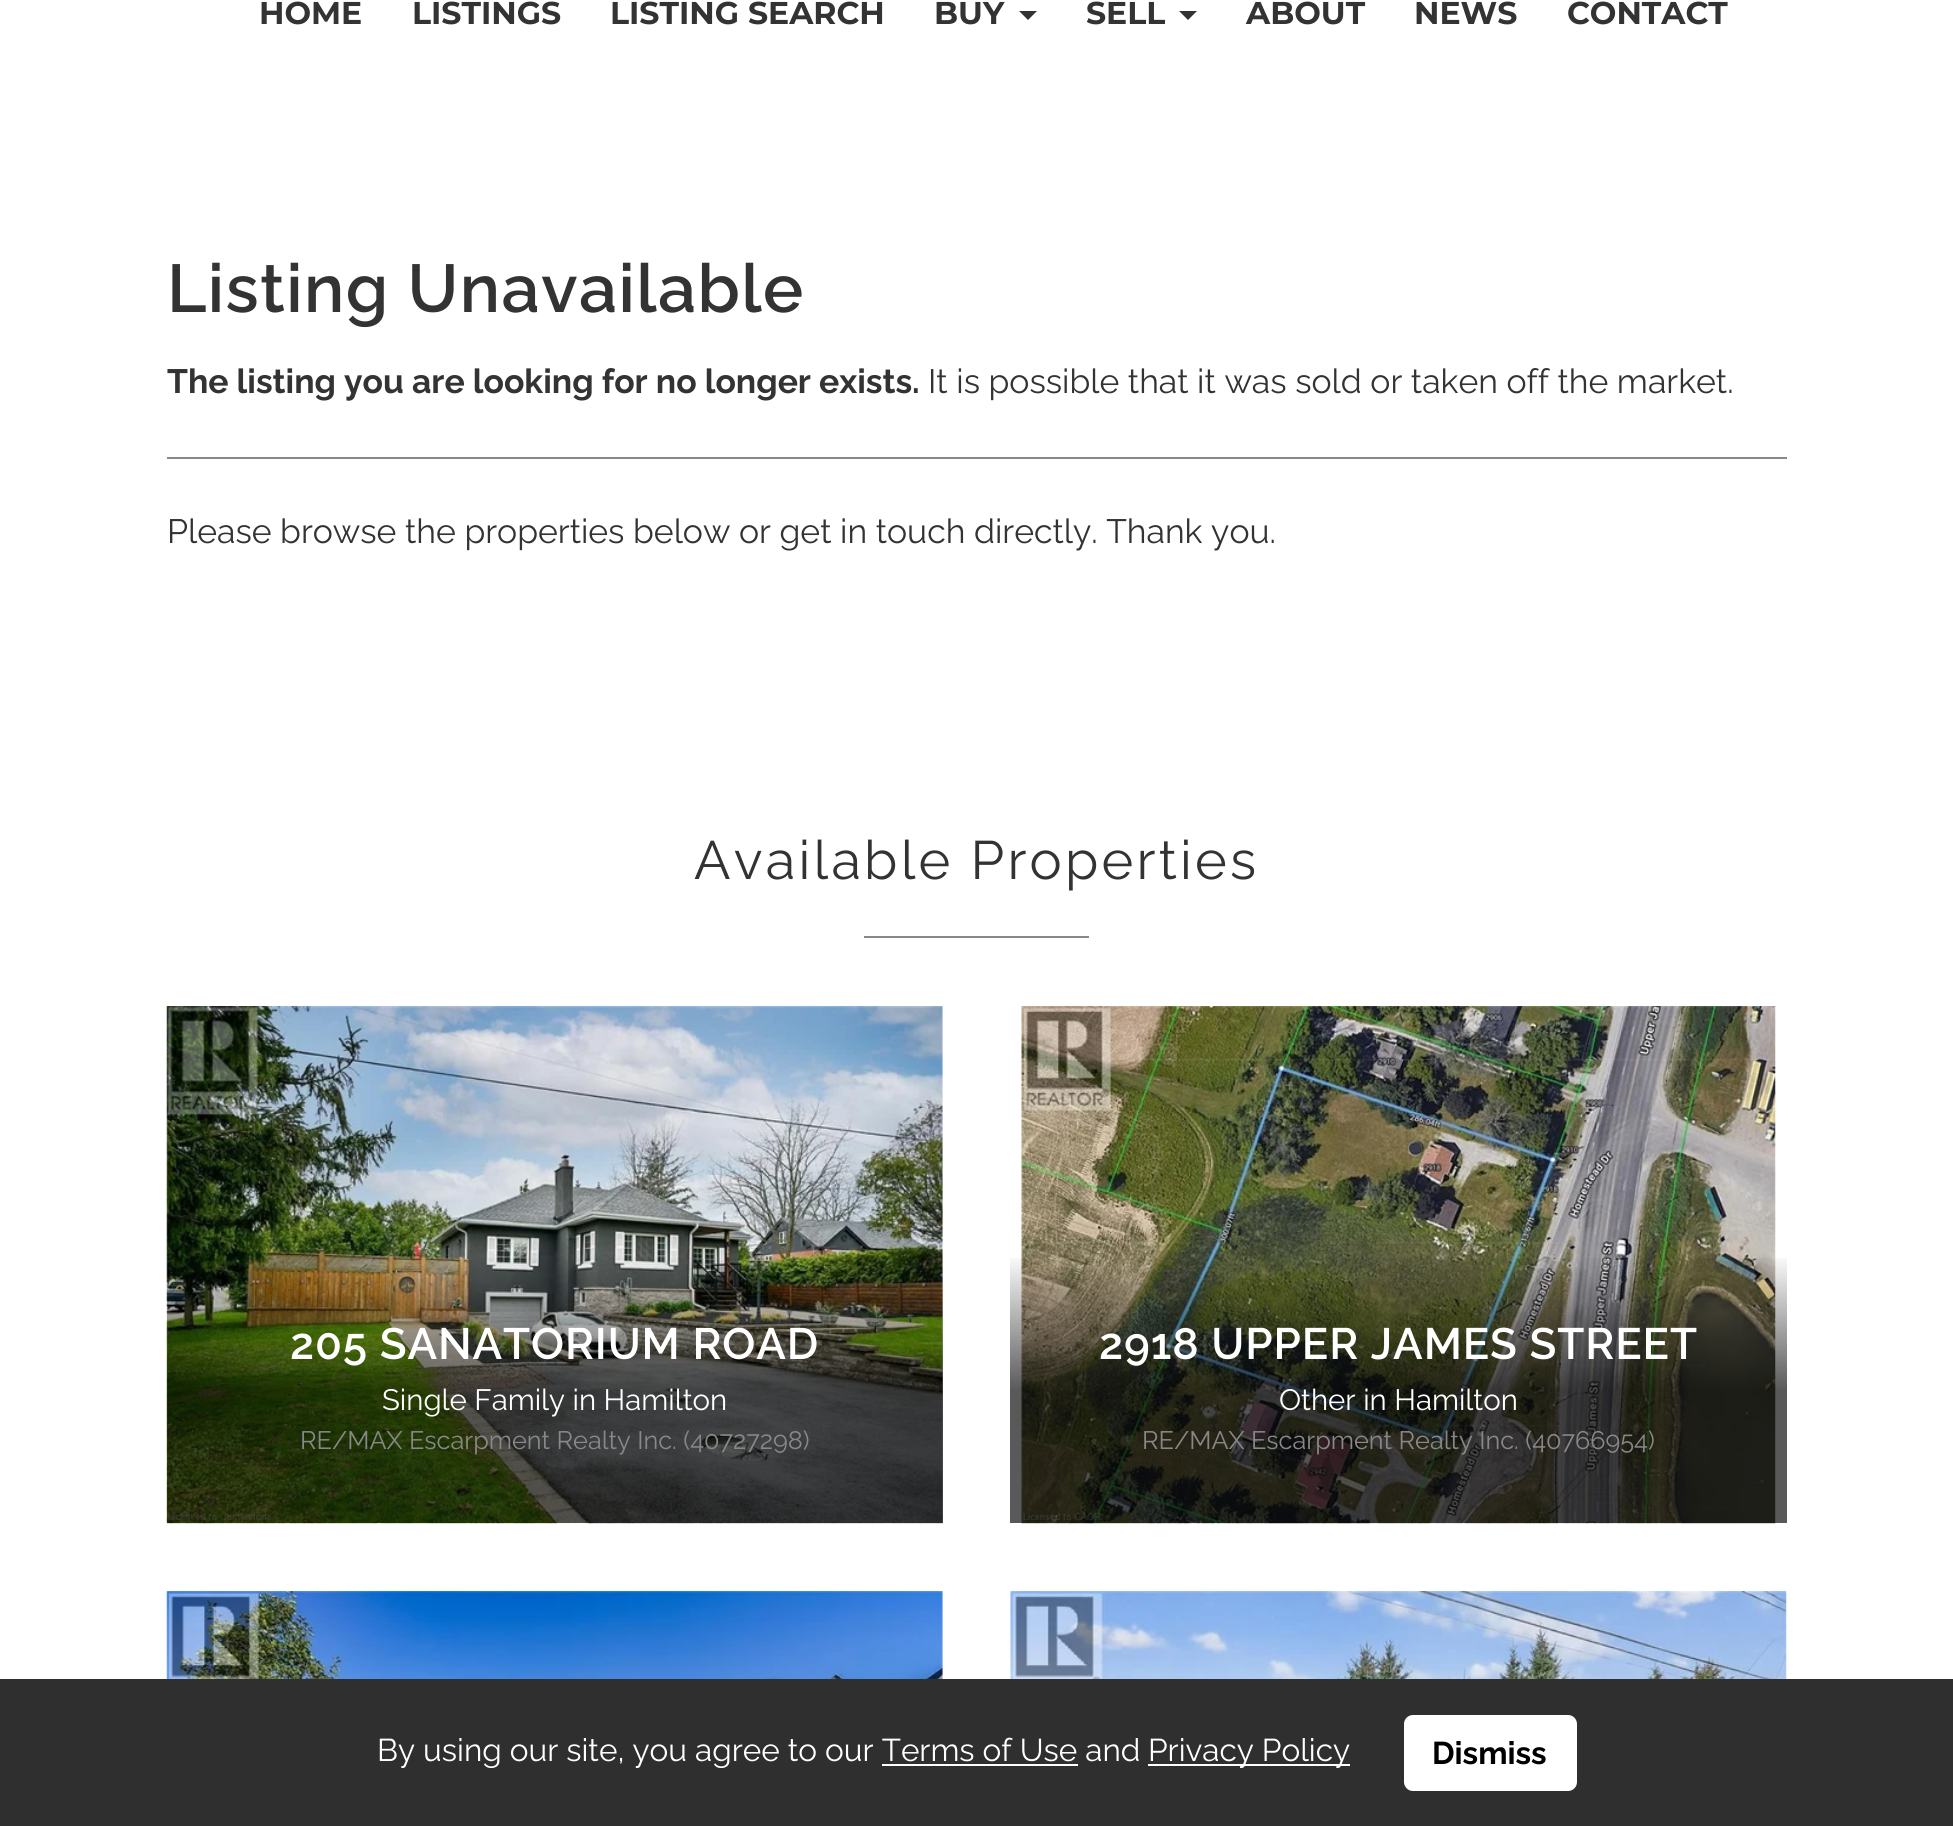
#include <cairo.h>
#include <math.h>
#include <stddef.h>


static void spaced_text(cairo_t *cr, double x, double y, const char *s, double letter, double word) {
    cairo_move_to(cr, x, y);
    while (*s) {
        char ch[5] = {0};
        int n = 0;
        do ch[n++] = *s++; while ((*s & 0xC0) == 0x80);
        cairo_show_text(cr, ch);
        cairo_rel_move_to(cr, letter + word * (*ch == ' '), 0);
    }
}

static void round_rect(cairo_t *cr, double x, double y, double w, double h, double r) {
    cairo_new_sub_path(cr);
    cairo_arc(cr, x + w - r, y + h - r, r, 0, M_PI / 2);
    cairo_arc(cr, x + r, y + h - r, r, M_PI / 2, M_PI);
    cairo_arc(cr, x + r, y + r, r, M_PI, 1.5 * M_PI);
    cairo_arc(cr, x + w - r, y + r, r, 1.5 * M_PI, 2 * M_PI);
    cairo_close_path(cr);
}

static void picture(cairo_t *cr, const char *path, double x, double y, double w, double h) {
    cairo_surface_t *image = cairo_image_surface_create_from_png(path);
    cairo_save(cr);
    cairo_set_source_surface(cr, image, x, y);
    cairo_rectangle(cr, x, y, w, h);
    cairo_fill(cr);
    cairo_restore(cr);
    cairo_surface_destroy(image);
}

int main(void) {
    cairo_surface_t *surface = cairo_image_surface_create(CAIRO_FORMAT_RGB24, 1953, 1826);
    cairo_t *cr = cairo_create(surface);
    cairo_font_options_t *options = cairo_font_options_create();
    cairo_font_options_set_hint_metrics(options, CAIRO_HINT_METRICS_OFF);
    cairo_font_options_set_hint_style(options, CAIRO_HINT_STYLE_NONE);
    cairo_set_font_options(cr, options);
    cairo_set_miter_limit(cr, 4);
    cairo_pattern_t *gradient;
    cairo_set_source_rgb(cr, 1, 1, 1);
    cairo_paint(cr);
    cairo_select_font_face(cr, "Montserrat", CAIRO_FONT_SLANT_NORMAL, CAIRO_FONT_WEIGHT_BOLD);
    cairo_set_font_size(cr, 31.5);
    cairo_set_source_rgb(cr, 0.2, 0.2, 0.2);
    cairo_move_to(cr, 259, 24);
    cairo_show_text(cr, "HOME");
    cairo_move_to(cr, 412, 24);
    cairo_show_text(cr, "LISTINGS");
    cairo_move_to(cr, 610, 24);
    cairo_show_text(cr, "LISTING SEARCH");
    cairo_move_to(cr, 934, 24);
    cairo_show_text(cr, "BUY");
    cairo_new_path(cr);
    cairo_move_to(cr, 1019, 11);
    cairo_line_to(cr, 1037, 11);
    cairo_line_to(cr, 1028, 20);
    cairo_close_path(cr);
    cairo_fill(cr);
    cairo_move_to(cr, 1086, 24);
    cairo_show_text(cr, "SELL");
    cairo_new_path(cr);
    cairo_move_to(cr, 1179, 11);
    cairo_line_to(cr, 1197, 11);
    cairo_line_to(cr, 1188, 20);
    cairo_close_path(cr);
    cairo_fill(cr);
    cairo_move_to(cr, 1246, 24);
    cairo_show_text(cr, "ABOUT");
    cairo_move_to(cr, 1414, 24);
    cairo_show_text(cr, "NEWS");
    cairo_move_to(cr, 1567, 24);
    cairo_show_text(cr, "CONTACT");
    cairo_select_font_face(cr, "Raleway SemiBold", CAIRO_FONT_SLANT_NORMAL, CAIRO_FONT_WEIGHT_NORMAL);
    cairo_set_font_size(cr, 67.5);
    spaced_text(cr, 167, 312, "Listing Unavailable", 1.4, 0);
    cairo_select_font_face(cr, "Raleway", CAIRO_FONT_SLANT_NORMAL, CAIRO_FONT_WEIGHT_BOLD);
    cairo_set_font_size(cr, 33.75);
    cairo_move_to(cr, 167, 393);
    cairo_show_text(cr, "The listing you are looking for no longer exists.");
    cairo_select_font_face(cr, "Raleway", CAIRO_FONT_SLANT_NORMAL, CAIRO_FONT_WEIGHT_NORMAL);
    cairo_move_to(cr, 928, 393);
    cairo_show_text(cr, "It is possible that it was sold or taken off the market.");
    cairo_set_source_rgb(cr, 0.533, 0.533, 0.533);
    cairo_rectangle(cr, 167, 457, 1620, 2);
    cairo_fill(cr);
    cairo_set_source_rgb(cr, 0.2, 0.2, 0.2);
    cairo_move_to(cr, 167, 543);
    cairo_show_text(cr, "Please browse the properties below or get in touch directly. Thank you.");
    cairo_set_font_size(cr, 54);
    spaced_text(cr, 694, 879, "Available Properties", 3.25, 0);
    cairo_set_source_rgb(cr, 0.533, 0.533, 0.533);
    cairo_rectangle(cr, 864, 936, 225, 2);
    cairo_fill(cr);
    picture(cr, "img1.png", 166, 1006, 777, 518);
    gradient = cairo_pattern_create_linear(555, 1253, 555, 1523);
    cairo_pattern_add_color_stop_rgba(gradient, 0, 0, 0, 0, 0);
    cairo_pattern_add_color_stop_rgba(gradient, 0.51, 0, 0, 0, 0.65);
    cairo_pattern_add_color_stop_rgba(gradient, 1, 0, 0, 0, 0.65);
    cairo_set_source(cr, gradient);
    cairo_pattern_destroy(gradient);
    cairo_rectangle(cr, 167, 1258, 776, 265);
    cairo_fill(cr);
    cairo_select_font_face(cr, "Raleway SemiBold", CAIRO_FONT_SLANT_NORMAL, CAIRO_FONT_WEIGHT_NORMAL);
    cairo_set_font_size(cr, 43.9);
    cairo_set_source_rgb(cr, 1, 1, 1);
    spaced_text(cr, 290, 1359, "205 SANATORIUM ROAD", 0.9, 0);
    cairo_select_font_face(cr, "Raleway", CAIRO_FONT_SLANT_NORMAL, CAIRO_FONT_WEIGHT_NORMAL);
    cairo_set_font_size(cr, 29.4);
    cairo_move_to(cr, 382, 1410);
    cairo_show_text(cr, "Single Family in Hamilton");
    cairo_set_font_size(cr, 25.3);
    cairo_set_source_rgb(cr, 0.533, 0.533, 0.533);
    cairo_move_to(cr, 300, 1449);
    cairo_show_text(cr, "RE/MAX Escarpment Realty Inc. (40727298)");
    picture(cr, "img2.png", 1021, 1006, 755, 518);
    gradient = cairo_pattern_create_linear(1398, 1253, 1398, 1523);
    cairo_pattern_add_color_stop_rgba(gradient, 0, 0, 0, 0, 0);
    cairo_pattern_add_color_stop_rgba(gradient, 0.51, 0, 0, 0, 0.65);
    cairo_pattern_add_color_stop_rgba(gradient, 1, 0, 0, 0, 0.65);
    cairo_set_source(cr, gradient);
    cairo_pattern_destroy(gradient);
    cairo_rectangle(cr, 1010, 1258, 777, 265);
    cairo_fill(cr);
    cairo_select_font_face(cr, "Raleway SemiBold", CAIRO_FONT_SLANT_NORMAL, CAIRO_FONT_WEIGHT_NORMAL);
    cairo_set_font_size(cr, 43.9);
    cairo_set_source_rgb(cr, 1, 1, 1);
    spaced_text(cr, 1099, 1359, "2918 UPPER JAMES STREET", 0.9, 0);
    cairo_select_font_face(cr, "Raleway", CAIRO_FONT_SLANT_NORMAL, CAIRO_FONT_WEIGHT_NORMAL);
    cairo_set_font_size(cr, 29.4);
    cairo_move_to(cr, 1279, 1410);
    cairo_show_text(cr, "Other in Hamilton");
    cairo_set_font_size(cr, 25.3);
    cairo_set_source_rgb(cr, 0.533, 0.533, 0.533);
    cairo_move_to(cr, 1142, 1449);
    cairo_show_text(cr, "RE/MAX Escarpment Realty Inc. (40766954)");
    picture(cr, "img3.png", 166, 1591, 777, 88);
    picture(cr, "img4.png", 1010, 1591, 777, 88);
    cairo_set_source_rgb(cr, 0.184, 0.184, 0.184);
    cairo_rectangle(cr, 0, 1679, 1953, 147);
    cairo_fill(cr);
    cairo_set_font_size(cr, 31.5);
    cairo_set_source_rgb(cr, 1, 1, 1);
    cairo_move_to(cr, 377, 1761);
    cairo_show_text(cr, "By using our site, you agree to our Terms of Use and");
    cairo_rectangle(cr, 1148, 1764, 202, 2);
    cairo_fill(cr);
    cairo_move_to(cr, 1148, 1761);
    cairo_show_text(cr, "Privacy Policy");
    round_rect(cr, 1404, 1715, 173, 76, 9);
    cairo_fill(cr);
    cairo_select_font_face(cr, "Raleway", CAIRO_FONT_SLANT_NORMAL, CAIRO_FONT_WEIGHT_BOLD);
    cairo_set_source_rgb(cr, 0, 0, 0);
    cairo_move_to(cr, 1432, 1764);
    cairo_show_text(cr, "Dismiss");
    cairo_set_source_rgb(cr, 1, 1, 1);
    cairo_rectangle(cr, 882, 1764, 196, 2);
    cairo_fill(cr);
    cairo_surface_write_to_png(surface, "page.png");
    cairo_font_options_destroy(options);
    cairo_destroy(cr);
    cairo_surface_destroy(surface);
    return 0;
}
